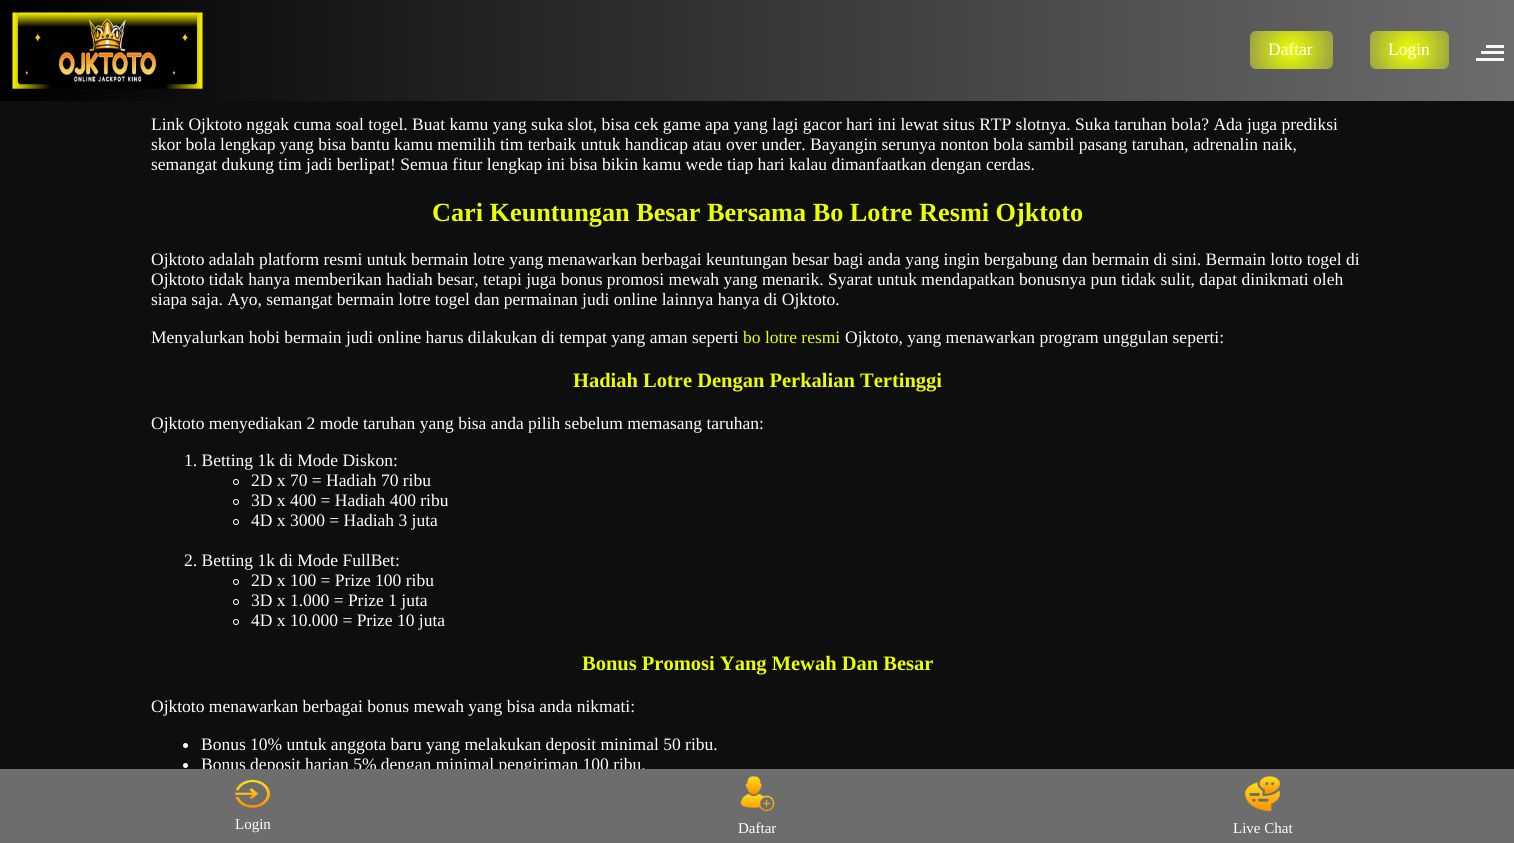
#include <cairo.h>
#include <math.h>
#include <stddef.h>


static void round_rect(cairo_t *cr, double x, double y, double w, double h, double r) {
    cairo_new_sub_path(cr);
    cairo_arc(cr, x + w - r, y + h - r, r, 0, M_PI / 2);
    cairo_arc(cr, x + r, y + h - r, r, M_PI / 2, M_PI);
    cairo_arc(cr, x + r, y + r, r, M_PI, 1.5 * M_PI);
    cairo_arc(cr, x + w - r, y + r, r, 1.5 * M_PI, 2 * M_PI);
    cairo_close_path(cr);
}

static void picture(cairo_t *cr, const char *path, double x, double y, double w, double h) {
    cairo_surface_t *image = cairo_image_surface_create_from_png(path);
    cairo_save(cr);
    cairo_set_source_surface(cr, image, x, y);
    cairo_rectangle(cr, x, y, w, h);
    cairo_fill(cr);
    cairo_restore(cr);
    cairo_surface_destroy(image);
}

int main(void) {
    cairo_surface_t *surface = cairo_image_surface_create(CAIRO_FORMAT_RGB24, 1514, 843);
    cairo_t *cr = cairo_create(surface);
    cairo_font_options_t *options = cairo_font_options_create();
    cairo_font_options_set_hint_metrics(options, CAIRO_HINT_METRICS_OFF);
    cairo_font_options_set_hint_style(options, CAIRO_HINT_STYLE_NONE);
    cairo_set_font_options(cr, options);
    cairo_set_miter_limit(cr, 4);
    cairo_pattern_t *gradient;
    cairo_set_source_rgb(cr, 0.055, 0.055, 0.055);
    cairo_paint(cr);
    gradient = cairo_pattern_create_linear(0, 51, 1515, 51);
    cairo_pattern_add_color_stop_rgba(gradient, 0, 0, 0, 0, 1);
    cairo_pattern_add_color_stop_rgba(gradient, 1, 0.431, 0.427, 0.427, 1);
    cairo_set_source(cr, gradient);
    cairo_pattern_destroy(gradient);
    cairo_rectangle(cr, 0, 0, 1514, 101);
    cairo_fill(cr);
    picture(cr, "img1.png", 12, 12, 191, 77);
    gradient = cairo_pattern_create_radial(1291, 50, 0, 1291, 50, 69);
    cairo_pattern_add_color_stop_rgba(gradient, 0, 0.922, 1, 0, 1);
    cairo_pattern_add_color_stop_rgba(gradient, 1, 0.431, 0.427, 0.427, 1);
    cairo_set_source(cr, gradient);
    cairo_pattern_destroy(gradient);
    round_rect(cr, 1250, 31, 83, 38, 6);
    cairo_fill(cr);
    cairo_select_font_face(cr, "Liberation Serif", CAIRO_FONT_SLANT_NORMAL, CAIRO_FONT_WEIGHT_NORMAL);
    cairo_set_font_size(cr, 17.5);
    cairo_set_source_rgb(cr, 1, 1, 1);
    cairo_move_to(cr, 1268, 55);
    cairo_show_text(cr, "Daftar");
    gradient = cairo_pattern_create_radial(1409, 50, 0, 1409, 50, 69);
    cairo_pattern_add_color_stop_rgba(gradient, 0, 0.922, 1, 0, 1);
    cairo_pattern_add_color_stop_rgba(gradient, 1, 0.431, 0.427, 0.427, 1);
    cairo_set_source(cr, gradient);
    cairo_pattern_destroy(gradient);
    round_rect(cr, 1370, 31, 79, 38, 6);
    cairo_fill(cr);
    cairo_set_source_rgb(cr, 1, 1, 1);
    cairo_move_to(cr, 1388, 55);
    cairo_show_text(cr, "Login");
    cairo_set_source_rgb(cr, 0.969, 0.969, 0.969);
    cairo_rectangle(cr, 1481, 51, 23, 3);
    cairo_fill(cr);
    cairo_rectangle(cr, 1486, 45, 18, 3);
    cairo_fill(cr);
    cairo_rectangle(cr, 1476, 58, 28, 3);
    cairo_fill(cr);
    cairo_set_source_rgb(cr, 1, 1, 1);
    cairo_move_to(cr, 151, 130);
    cairo_show_text(cr, "Link Ojktoto nggak cuma soal togel. Buat kamu yang suka slot, bisa cek game apa yang lagi gacor hari ini lewat situs RTP slotnya. Suka taruhan bola? Ada juga prediksi");
    cairo_move_to(cr, 151, 150);
    cairo_show_text(cr, "skor bola lengkap yang bisa bantu kamu memilih tim terbaik untuk handicap atau over under. Bayangin serunya nonton bola sambil pasang taruhan, adrenalin naik,");
    cairo_move_to(cr, 151, 170);
    cairo_show_text(cr, "semangat dukung tim jadi berlipat! Semua fitur lengkap ini bisa bikin kamu wede tiap hari kalau dimanfaatkan dengan cerdas.");
    cairo_select_font_face(cr, "Liberation Serif", CAIRO_FONT_SLANT_NORMAL, CAIRO_FONT_WEIGHT_BOLD);
    cairo_set_font_size(cr, 26.25);
    cairo_set_source_rgb(cr, 0.922, 1, 0);
    cairo_move_to(cr, 432, 221);
    cairo_show_text(cr, "Cari Keuntungan Besar Bersama Bo Lotre Resmi Ojktoto");
    cairo_select_font_face(cr, "Liberation Serif", CAIRO_FONT_SLANT_NORMAL, CAIRO_FONT_WEIGHT_NORMAL);
    cairo_set_font_size(cr, 17.5);
    cairo_set_source_rgb(cr, 1, 1, 1);
    cairo_move_to(cr, 151, 265);
    cairo_show_text(cr, "Ojktoto adalah platform resmi untuk bermain lotre yang menawarkan berbagai keuntungan besar bagi anda yang ingin bergabung dan bermain di sini. Bermain lotto togel di");
    cairo_move_to(cr, 151, 285);
    cairo_show_text(cr, "Ojktoto tidak hanya memberikan hadiah besar, tetapi juga bonus promosi mewah yang menarik. Syarat untuk mendapatkan bonusnya pun tidak sulit, dapat dinikmati oleh");
    cairo_move_to(cr, 151, 305);
    cairo_show_text(cr, "siapa saja. Ayo, semangat bermain lotre togel dan permainan judi online lainnya hanya di Ojktoto.");
    cairo_move_to(cr, 151, 343);
    cairo_show_text(cr, "Menyalurkan hobi bermain judi online harus dilakukan di tempat yang aman seperti");
    cairo_set_source_rgb(cr, 0.922, 1, 0);
    cairo_move_to(cr, 743, 343);
    cairo_show_text(cr, "bo lotre resmi");
    cairo_set_source_rgb(cr, 1, 1, 1);
    cairo_move_to(cr, 845, 343);
    cairo_show_text(cr, "Ojktoto, yang menawarkan program unggulan seperti:");
    cairo_select_font_face(cr, "Liberation Serif", CAIRO_FONT_SLANT_NORMAL, CAIRO_FONT_WEIGHT_BOLD);
    cairo_set_font_size(cr, 20.5);
    cairo_set_source_rgb(cr, 0.922, 1, 0);
    cairo_move_to(cr, 573, 387);
    cairo_show_text(cr, "Hadiah Lotre Dengan Perkalian Tertinggi");
    cairo_select_font_face(cr, "Liberation Serif", CAIRO_FONT_SLANT_NORMAL, CAIRO_FONT_WEIGHT_NORMAL);
    cairo_set_font_size(cr, 17.5);
    cairo_set_source_rgb(cr, 1, 1, 1);
    cairo_move_to(cr, 151, 429);
    cairo_show_text(cr, "Ojktoto menyediakan 2 mode taruhan yang bisa anda pilih sebelum memasang taruhan:");
    cairo_move_to(cr, 184, 466);
    cairo_show_text(cr, "1. Betting 1k di Mode Diskon:");
    cairo_new_path(cr);
    cairo_arc(cr, 236, 482, 2.5, 0, 2 * M_PI);
    cairo_set_line_width(cr, 1);
    cairo_stroke(cr);
    cairo_move_to(cr, 251, 486);
    cairo_show_text(cr, "2D x 70 = Hadiah 70 ribu");
    cairo_new_path(cr);
    cairo_arc(cr, 236, 502, 2.5, 0, 2 * M_PI);
    cairo_stroke(cr);
    cairo_move_to(cr, 251, 506);
    cairo_show_text(cr, "3D x 400 = Hadiah 400 ribu");
    cairo_new_path(cr);
    cairo_arc(cr, 236, 522, 2.5, 0, 2 * M_PI);
    cairo_stroke(cr);
    cairo_move_to(cr, 251, 526);
    cairo_show_text(cr, "4D x 3000 = Hadiah 3 juta");
    cairo_move_to(cr, 184, 566);
    cairo_show_text(cr, "2. Betting 1k di Mode FullBet:");
    cairo_new_path(cr);
    cairo_arc(cr, 236, 582, 2.5, 0, 2 * M_PI);
    cairo_stroke(cr);
    cairo_move_to(cr, 251, 586);
    cairo_show_text(cr, "2D x 100 = Prize 100 ribu");
    cairo_new_path(cr);
    cairo_arc(cr, 236, 602, 2.5, 0, 2 * M_PI);
    cairo_stroke(cr);
    cairo_move_to(cr, 251, 606);
    cairo_show_text(cr, "3D x 1.000 = Prize 1 juta");
    cairo_new_path(cr);
    cairo_arc(cr, 236, 622, 2.5, 0, 2 * M_PI);
    cairo_stroke(cr);
    cairo_move_to(cr, 251, 626);
    cairo_show_text(cr, "4D x 10.000 = Prize 10 juta");
    cairo_select_font_face(cr, "Liberation Serif", CAIRO_FONT_SLANT_NORMAL, CAIRO_FONT_WEIGHT_BOLD);
    cairo_set_font_size(cr, 20.5);
    cairo_set_source_rgb(cr, 0.922, 1, 0);
    cairo_move_to(cr, 582, 670);
    cairo_show_text(cr, "Bonus Promosi Yang Mewah Dan Besar");
    cairo_select_font_face(cr, "Liberation Serif", CAIRO_FONT_SLANT_NORMAL, CAIRO_FONT_WEIGHT_NORMAL);
    cairo_set_font_size(cr, 17.5);
    cairo_set_source_rgb(cr, 1, 1, 1);
    cairo_move_to(cr, 151, 712);
    cairo_show_text(cr, "Ojktoto menawarkan berbagai bonus mewah yang bisa anda nikmati:");
    cairo_new_path(cr);
    cairo_arc(cr, 185.5, 745.5, 2.5, 0, 2 * M_PI);
    cairo_fill(cr);
    cairo_move_to(cr, 201, 750);
    cairo_show_text(cr, "Bonus 10% untuk anggota baru yang melakukan deposit minimal 50 ribu.");
    cairo_new_path(cr);
    cairo_arc(cr, 185.5, 765.5, 2.5, 0, 2 * M_PI);
    cairo_fill(cr);
    cairo_move_to(cr, 201, 770);
    cairo_show_text(cr, "Bonus deposit harian 5% dengan minimal pengiriman 100 ribu.");
    cairo_set_source_rgb(cr, 0.431, 0.427, 0.427);
    cairo_rectangle(cr, 0, 769, 1514, 74);
    cairo_fill(cr);
    picture(cr, "img2.png", 235, 779, 36, 29);
    cairo_set_font_size(cr, 15);
    cairo_set_source_rgb(cr, 1, 1, 1);
    cairo_move_to(cr, 235, 829);
    cairo_show_text(cr, "Login");
    picture(cr, "img3.png", 740, 776, 35, 36);
    cairo_move_to(cr, 738, 833);
    cairo_show_text(cr, "Daftar");
    picture(cr, "img4.png", 1244, 776, 37, 36);
    cairo_move_to(cr, 1233, 833);
    cairo_show_text(cr, "Live Chat");
    cairo_surface_write_to_png(surface, "page.png");
    cairo_font_options_destroy(options);
    cairo_destroy(cr);
    cairo_surface_destroy(surface);
    return 0;
}
